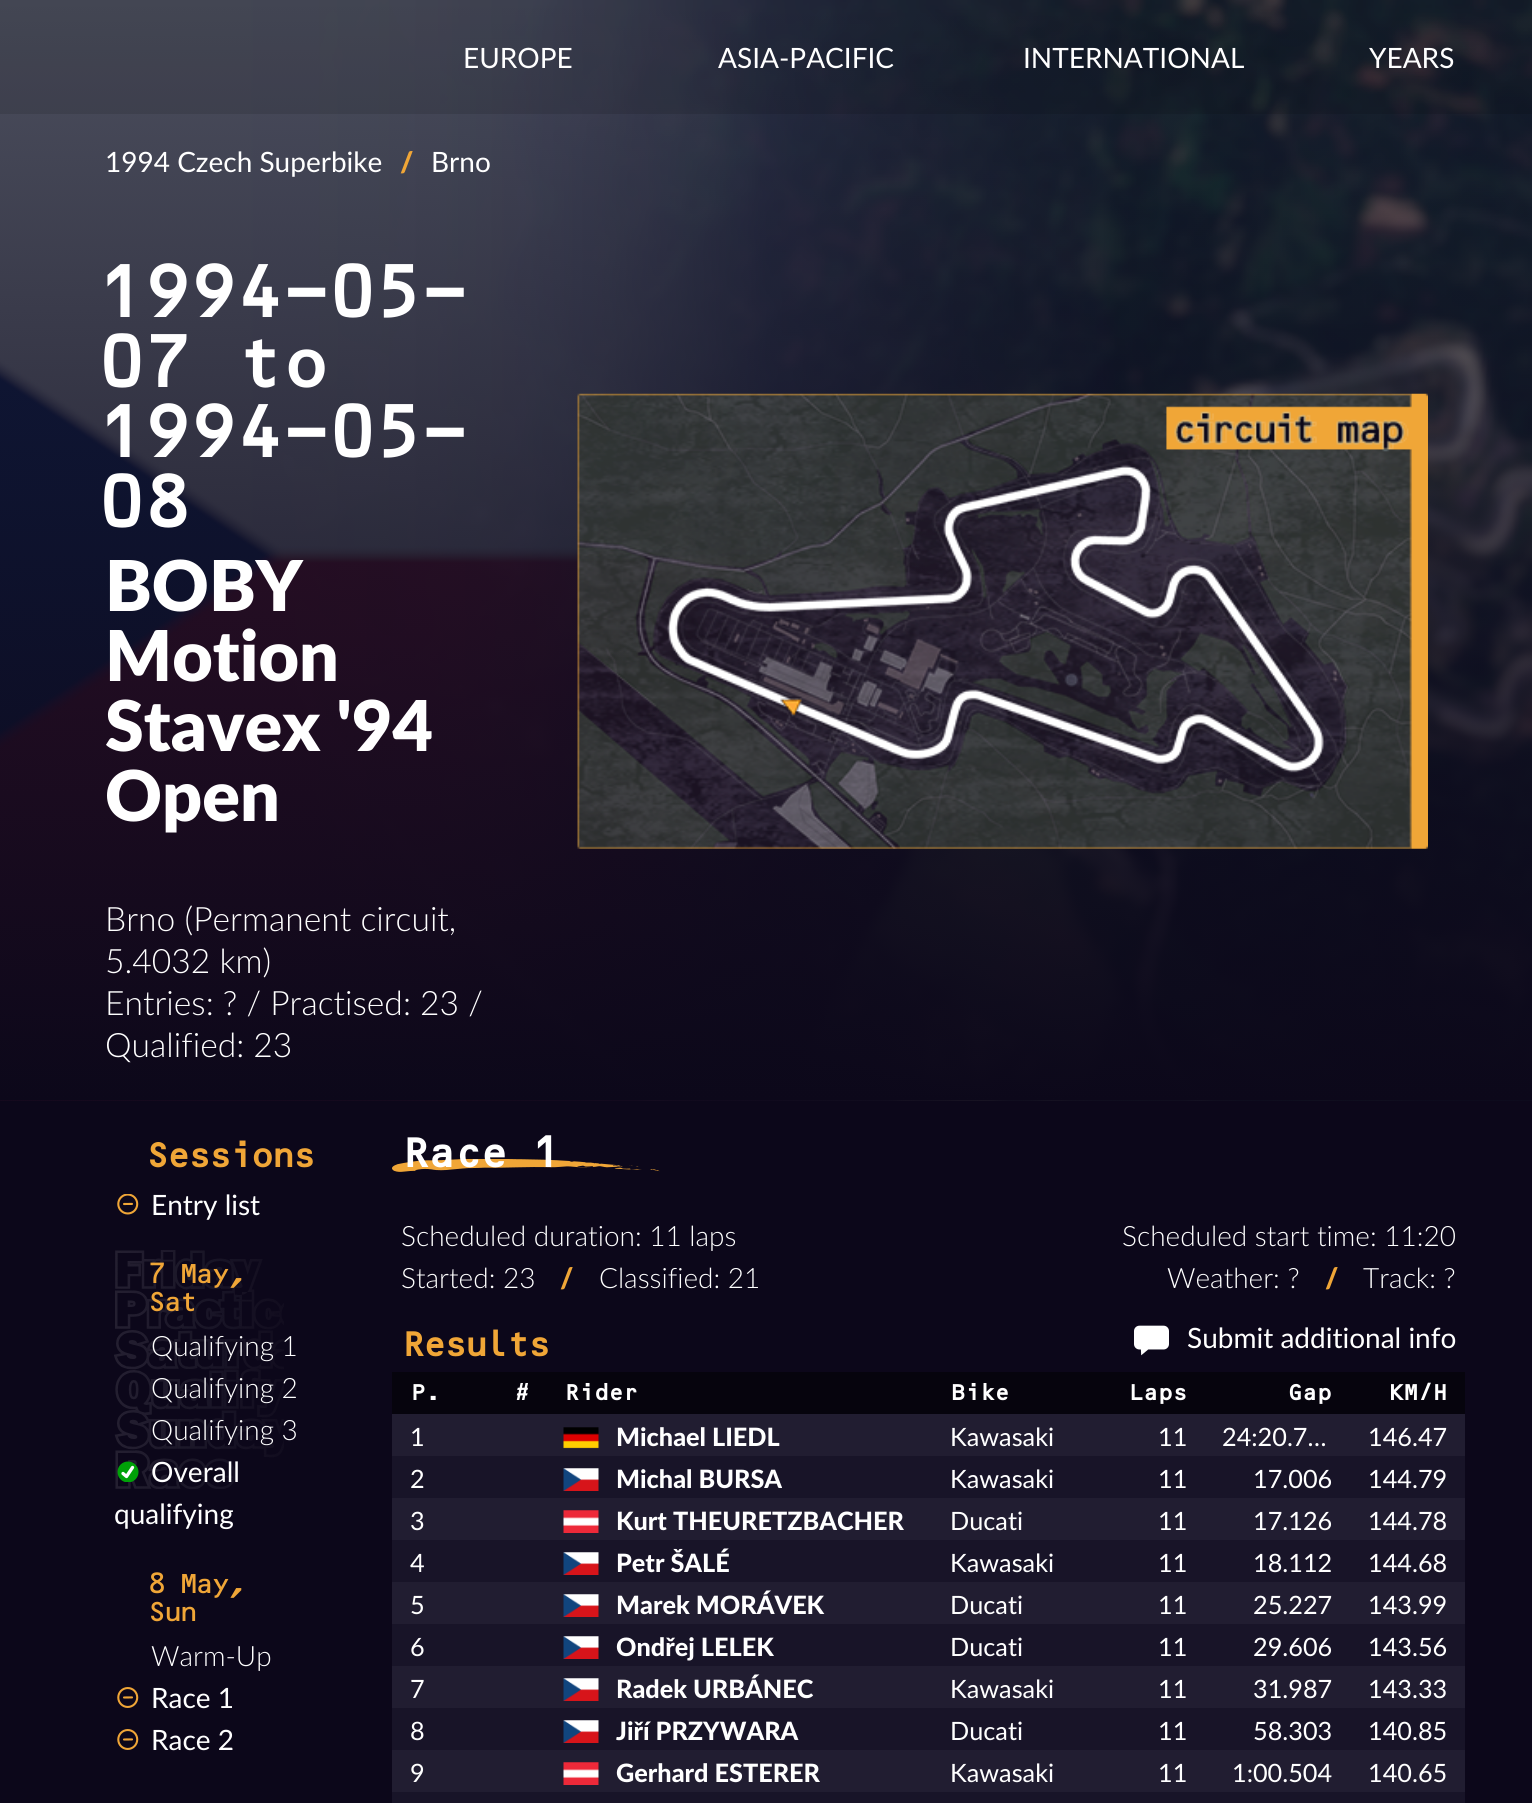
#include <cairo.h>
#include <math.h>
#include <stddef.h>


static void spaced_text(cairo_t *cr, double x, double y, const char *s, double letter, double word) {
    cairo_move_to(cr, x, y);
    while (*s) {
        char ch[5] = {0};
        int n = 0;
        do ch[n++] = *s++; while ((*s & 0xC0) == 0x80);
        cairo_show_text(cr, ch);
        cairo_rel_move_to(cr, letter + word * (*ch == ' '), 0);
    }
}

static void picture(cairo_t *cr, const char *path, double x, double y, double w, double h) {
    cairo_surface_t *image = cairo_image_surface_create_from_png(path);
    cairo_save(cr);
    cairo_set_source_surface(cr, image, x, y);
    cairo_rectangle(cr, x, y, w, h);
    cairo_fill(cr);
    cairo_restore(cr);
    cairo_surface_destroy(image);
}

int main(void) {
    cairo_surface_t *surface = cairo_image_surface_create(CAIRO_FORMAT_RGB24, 1532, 1803);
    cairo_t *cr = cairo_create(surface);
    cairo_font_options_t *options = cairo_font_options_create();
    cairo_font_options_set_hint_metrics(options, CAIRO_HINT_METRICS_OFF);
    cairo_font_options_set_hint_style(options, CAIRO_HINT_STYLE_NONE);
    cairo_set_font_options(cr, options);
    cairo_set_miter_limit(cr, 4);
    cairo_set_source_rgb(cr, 0.047, 0.031, 0.102);
    cairo_paint(cr);
    picture(cr, "img1.png", 0, 0, 1532, 1101);
    cairo_set_source_rgba(cr, 0, 0, 0, 0.12);
    cairo_rectangle(cr, 0, 0, 1532, 114);
    cairo_fill(cr);
    cairo_select_font_face(cr, "Lato", CAIRO_FONT_SLANT_NORMAL, CAIRO_FONT_WEIGHT_NORMAL);
    cairo_set_font_size(cr, 28);
    cairo_set_source_rgb(cr, 1, 1, 1);
    cairo_move_to(cr, 463, 68);
    cairo_show_text(cr, "EUROPE");
    cairo_move_to(cr, 718, 68);
    cairo_show_text(cr, "ASIA-PACIFIC");
    cairo_move_to(cr, 1023, 68);
    cairo_show_text(cr, "INTERNATIONAL");
    cairo_move_to(cr, 1369, 68);
    cairo_show_text(cr, "YEARS");
    cairo_move_to(cr, 105, 172);
    cairo_show_text(cr, "1994 Czech Superbike");
    cairo_select_font_face(cr, "Lato Black", CAIRO_FONT_SLANT_NORMAL, CAIRO_FONT_WEIGHT_NORMAL);
    cairo_set_source_rgb(cr, 0.941, 0.651, 0.216);
    cairo_move_to(cr, 400, 172);
    cairo_show_text(cr, "/");
    cairo_select_font_face(cr, "Lato", CAIRO_FONT_SLANT_NORMAL, CAIRO_FONT_WEIGHT_NORMAL);
    cairo_set_source_rgb(cr, 1, 1, 1);
    cairo_move_to(cr, 431, 172);
    cairo_show_text(cr, "Brno");
    cairo_select_font_face(cr, "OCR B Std", CAIRO_FONT_SLANT_NORMAL, CAIRO_FONT_WEIGHT_BOLD);
    cairo_set_font_size(cr, 70);
    spaced_text(cr, 96, 317, "1994-05-", -4.25, 0);
    spaced_text(cr, 96, 387, "07 to", -4.25, 0);
    spaced_text(cr, 96, 457, "1994-05-", -4.25, 0);
    spaced_text(cr, 96, 527, "08", -4.25, 0);
    cairo_select_font_face(cr, "Lato Black", CAIRO_FONT_SLANT_NORMAL, CAIRO_FONT_WEIGHT_NORMAL);
    cairo_move_to(cr, 105, 611);
    cairo_show_text(cr, "BOBY");
    cairo_move_to(cr, 105, 681);
    cairo_show_text(cr, "Motion");
    cairo_move_to(cr, 105, 751);
    cairo_show_text(cr, "Stavex '94");
    cairo_move_to(cr, 105, 821);
    cairo_show_text(cr, "Open");
    cairo_select_font_face(cr, "Lato Light", CAIRO_FONT_SLANT_NORMAL, CAIRO_FONT_WEIGHT_NORMAL);
    cairo_set_font_size(cr, 33.6);
    cairo_move_to(cr, 105, 931);
    cairo_show_text(cr, "Brno (Permanent circuit,");
    cairo_move_to(cr, 105, 973);
    cairo_show_text(cr, "5.4032 km)");
    cairo_move_to(cr, 105, 1015);
    cairo_show_text(cr, "Entries: ? / Practised: 23 /");
    cairo_move_to(cr, 105, 1057);
    cairo_show_text(cr, "Qualified: 23");
    picture(cr, "img2.png", 577, 393, 851, 456);
    picture(cr, "img3.png", 114, 1250, 170, 239);
    cairo_select_font_face(cr, "OCR B Std", CAIRO_FONT_SLANT_NORMAL, CAIRO_FONT_WEIGHT_BOLD);
    cairo_set_font_size(cr, 35);
    cairo_set_source_rgb(cr, 0.941, 0.651, 0.216);
    spaced_text(cr, 145, 1167, "Sessions", -4.25, 0);
    picture(cr, "img4.png", 117, 1194, 22, 21);
    cairo_select_font_face(cr, "Lato", CAIRO_FONT_SLANT_NORMAL, CAIRO_FONT_WEIGHT_NORMAL);
    cairo_set_font_size(cr, 28);
    cairo_set_source_rgb(cr, 1, 1, 1);
    cairo_move_to(cr, 151, 1215);
    cairo_show_text(cr, "Entry list");
    cairo_select_font_face(cr, "OCR B Std", CAIRO_FONT_SLANT_NORMAL, CAIRO_FONT_WEIGHT_NORMAL);
    cairo_set_source_rgb(cr, 0.941, 0.651, 0.216);
    spaced_text(cr, 147, 1283, "7 May,", -4.25, 0);
    spaced_text(cr, 147, 1311, "Sat", -4.25, 0);
    cairo_select_font_face(cr, "Lato Light", CAIRO_FONT_SLANT_NORMAL, CAIRO_FONT_WEIGHT_NORMAL);
    cairo_set_source_rgb(cr, 1, 1, 1);
    cairo_move_to(cr, 151, 1356);
    cairo_show_text(cr, "Qualifying 1");
    cairo_move_to(cr, 151, 1398);
    cairo_show_text(cr, "Qualifying 2");
    cairo_move_to(cr, 151, 1440);
    cairo_show_text(cr, "Qualifying 3");
    cairo_save(cr);
    cairo_rectangle(cr, 114, 1461, 28, 21);
    cairo_clip(cr);
    cairo_set_source_rgb(cr, 0, 0.635, 0.035);
    cairo_arc(cr, 128, 1472, 10.5, 0, 2 * M_PI);
    cairo_fill(cr);
    cairo_restore(cr);
    cairo_new_path(cr);
    cairo_move_to(cr, 123, 1473.5);
    cairo_line_to(cr, 126.5, 1476.5);
    cairo_line_to(cr, 132.5, 1467.5);
    cairo_set_line_width(cr, 3.3);
    cairo_set_line_cap(cr, CAIRO_LINE_CAP_ROUND);
    cairo_set_line_join(cr, CAIRO_LINE_JOIN_ROUND);
    cairo_stroke(cr);
    cairo_select_font_face(cr, "Lato", CAIRO_FONT_SLANT_NORMAL, CAIRO_FONT_WEIGHT_NORMAL);
    cairo_move_to(cr, 151, 1482);
    cairo_show_text(cr, "Overall");
    cairo_move_to(cr, 114, 1524);
    cairo_show_text(cr, "qualifying");
    cairo_select_font_face(cr, "OCR B Std", CAIRO_FONT_SLANT_NORMAL, CAIRO_FONT_WEIGHT_NORMAL);
    cairo_set_source_rgb(cr, 0.941, 0.651, 0.216);
    spaced_text(cr, 147, 1593, "8 May,", -4.25, 0);
    spaced_text(cr, 147, 1621, "Sun", -4.25, 0);
    cairo_select_font_face(cr, "Lato Light", CAIRO_FONT_SLANT_NORMAL, CAIRO_FONT_WEIGHT_NORMAL);
    cairo_set_source_rgb(cr, 1, 1, 1);
    cairo_move_to(cr, 151, 1666);
    cairo_show_text(cr, "Warm-Up");
    picture(cr, "img5.png", 117, 1687, 22, 21);
    cairo_select_font_face(cr, "Lato", CAIRO_FONT_SLANT_NORMAL, CAIRO_FONT_WEIGHT_NORMAL);
    cairo_move_to(cr, 151, 1708);
    cairo_show_text(cr, "Race 1");
    picture(cr, "img5.png", 117, 1729, 22, 21);
    cairo_move_to(cr, 151, 1750);
    cairo_show_text(cr, "Race 2");
    picture(cr, "img6.png", 392, 1159, 268, 13);
    cairo_select_font_face(cr, "OCR B Std", CAIRO_FONT_SLANT_NORMAL, CAIRO_FONT_WEIGHT_BOLD);
    cairo_set_font_size(cr, 42);
    spaced_text(cr, 401, 1167, "Race 1", -4.25, 0);
    cairo_select_font_face(cr, "Lato Light", CAIRO_FONT_SLANT_NORMAL, CAIRO_FONT_WEIGHT_NORMAL);
    cairo_set_font_size(cr, 28);
    cairo_move_to(cr, 401, 1246);
    cairo_show_text(cr, "Scheduled duration: 11 laps");
    cairo_move_to(cr, 401, 1288);
    cairo_show_text(cr, "Started: 23");
    cairo_select_font_face(cr, "Lato Black", CAIRO_FONT_SLANT_NORMAL, CAIRO_FONT_WEIGHT_NORMAL);
    cairo_set_source_rgb(cr, 0.941, 0.651, 0.216);
    cairo_move_to(cr, 560, 1288);
    cairo_show_text(cr, "/");
    cairo_select_font_face(cr, "Lato Light", CAIRO_FONT_SLANT_NORMAL, CAIRO_FONT_WEIGHT_NORMAL);
    cairo_set_source_rgb(cr, 1, 1, 1);
    cairo_move_to(cr, 599, 1288);
    cairo_show_text(cr, "Classified: 21");
    cairo_move_to(cr, 1122, 1246);
    cairo_show_text(cr, "Scheduled start time: 11:20");
    cairo_move_to(cr, 1167, 1288);
    cairo_show_text(cr, "Weather: ?");
    cairo_select_font_face(cr, "Lato Black", CAIRO_FONT_SLANT_NORMAL, CAIRO_FONT_WEIGHT_NORMAL);
    cairo_set_source_rgb(cr, 0.941, 0.651, 0.216);
    cairo_move_to(cr, 1325, 1288);
    cairo_show_text(cr, "/");
    cairo_select_font_face(cr, "Lato Light", CAIRO_FONT_SLANT_NORMAL, CAIRO_FONT_WEIGHT_NORMAL);
    cairo_set_source_rgb(cr, 1, 1, 1);
    cairo_move_to(cr, 1363, 1288);
    cairo_show_text(cr, "Track: ?");
    cairo_select_font_face(cr, "OCR B Std", CAIRO_FONT_SLANT_NORMAL, CAIRO_FONT_WEIGHT_BOLD);
    cairo_set_font_size(cr, 35);
    cairo_set_source_rgb(cr, 0.941, 0.651, 0.216);
    spaced_text(cr, 401, 1356, "Results", -4.25, 0);
    picture(cr, "img7.png", 1134, 1325, 35, 31);
    cairo_select_font_face(cr, "Lato", CAIRO_FONT_SLANT_NORMAL, CAIRO_FONT_WEIGHT_NORMAL);
    cairo_set_font_size(cr, 28);
    cairo_set_source_rgb(cr, 1, 1, 1);
    cairo_move_to(cr, 1187, 1348);
    cairo_show_text(cr, "Submit additional info");
    cairo_set_source_rgb(cr, 0.024, 0.016, 0.051);
    cairo_rectangle(cr, 392, 1372, 812, 42);
    cairo_fill(cr);
    cairo_select_font_face(cr, "OCR B Std", CAIRO_FONT_SLANT_NORMAL, CAIRO_FONT_WEIGHT_BOLD);
    cairo_set_font_size(cr, 22.5);
    cairo_set_source_rgb(cr, 1, 1, 1);
    spaced_text(cr, 410, 1400, "P.", -1.5, 0);
    spaced_text(cr, 514, 1400, "#", -1.5, 0);
    spaced_text(cr, 564, 1400, "Rider", -1.5, 0);
    spaced_text(cr, 950, 1400, "Bike", -1.5, 0);
    spaced_text(cr, 1128, 1400, "Laps", -1.5, 0);
    cairo_set_source_rgb(cr, 0.024, 0.016, 0.051);
    cairo_rectangle(cr, 1204, 1372, 261, 42);
    cairo_fill(cr);
    cairo_set_source_rgb(cr, 1, 1, 1);
    spaced_text(cr, 1287, 1400, "Gap", -1.5, 0);
    spaced_text(cr, 1388, 1400, "KM/H", -1.5, 0);
    cairo_set_source_rgb(cr, 0.129, 0.114, 0.192);
    cairo_rectangle(cr, 392, 1414, 1073, 42);
    cairo_fill(cr);
    cairo_select_font_face(cr, "Lato", CAIRO_FONT_SLANT_NORMAL, CAIRO_FONT_WEIGHT_NORMAL);
    cairo_set_font_size(cr, 25.25);
    cairo_set_source_rgb(cr, 1, 1, 1);
    cairo_move_to(cr, 410, 1446);
    cairo_show_text(cr, "1");
    picture(cr, "img8.png", 563, 1427, 36, 22);
    cairo_select_font_face(cr, "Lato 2 Black", CAIRO_FONT_SLANT_NORMAL, CAIRO_FONT_WEIGHT_NORMAL);
    cairo_move_to(cr, 616, 1446);
    cairo_show_text(cr, "Michael LIEDL");
    cairo_select_font_face(cr, "Lato", CAIRO_FONT_SLANT_NORMAL, CAIRO_FONT_WEIGHT_NORMAL);
    cairo_move_to(cr, 950, 1446);
    cairo_show_text(cr, "Kawasaki");
    cairo_move_to(cr, 1158, 1446);
    cairo_show_text(cr, "11");
    cairo_move_to(cr, 1222, 1446);
    cairo_show_text(cr, "24:20.7…");
    cairo_move_to(cr, 1368, 1446);
    cairo_show_text(cr, "146.47");
    cairo_set_source_rgb(cr, 0.094, 0.082, 0.157);
    cairo_rectangle(cr, 392, 1456, 1073, 42);
    cairo_fill(cr);
    cairo_set_source_rgb(cr, 1, 1, 1);
    cairo_move_to(cr, 410, 1488);
    cairo_show_text(cr, "2");
    picture(cr, "img9.png", 563, 1468, 36, 23);
    cairo_select_font_face(cr, "Lato 2 Black", CAIRO_FONT_SLANT_NORMAL, CAIRO_FONT_WEIGHT_NORMAL);
    cairo_move_to(cr, 616, 1488);
    cairo_show_text(cr, "Michal BURSA");
    cairo_select_font_face(cr, "Lato", CAIRO_FONT_SLANT_NORMAL, CAIRO_FONT_WEIGHT_NORMAL);
    cairo_move_to(cr, 950, 1488);
    cairo_show_text(cr, "Kawasaki");
    cairo_move_to(cr, 1158, 1488);
    cairo_show_text(cr, "11");
    cairo_move_to(cr, 1253, 1488);
    cairo_show_text(cr, "17.006");
    cairo_move_to(cr, 1368, 1488);
    cairo_show_text(cr, "144.79");
    cairo_set_source_rgb(cr, 0.129, 0.114, 0.192);
    cairo_rectangle(cr, 392, 1498, 1073, 42);
    cairo_fill(cr);
    cairo_set_source_rgb(cr, 1, 1, 1);
    cairo_move_to(cr, 410, 1530);
    cairo_show_text(cr, "3");
    picture(cr, "img10.png", 563, 1510, 36, 23);
    cairo_select_font_face(cr, "Lato 2 Black", CAIRO_FONT_SLANT_NORMAL, CAIRO_FONT_WEIGHT_NORMAL);
    cairo_move_to(cr, 616, 1530);
    cairo_show_text(cr, "Kurt THEURETZBACHER");
    cairo_select_font_face(cr, "Lato", CAIRO_FONT_SLANT_NORMAL, CAIRO_FONT_WEIGHT_NORMAL);
    cairo_move_to(cr, 950, 1530);
    cairo_show_text(cr, "Ducati");
    cairo_move_to(cr, 1158, 1530);
    cairo_show_text(cr, "11");
    cairo_move_to(cr, 1253, 1530);
    cairo_show_text(cr, "17.126");
    cairo_move_to(cr, 1368, 1530);
    cairo_show_text(cr, "144.78");
    cairo_set_source_rgb(cr, 0.094, 0.082, 0.157);
    cairo_rectangle(cr, 392, 1540, 1073, 42);
    cairo_fill(cr);
    cairo_set_source_rgb(cr, 1, 1, 1);
    cairo_move_to(cr, 410, 1572);
    cairo_show_text(cr, "4");
    picture(cr, "img9.png", 563, 1552, 36, 23);
    cairo_select_font_face(cr, "Lato 2 Black", CAIRO_FONT_SLANT_NORMAL, CAIRO_FONT_WEIGHT_NORMAL);
    cairo_move_to(cr, 616, 1572);
    cairo_show_text(cr, "Petr ŠALÉ");
    cairo_select_font_face(cr, "Lato", CAIRO_FONT_SLANT_NORMAL, CAIRO_FONT_WEIGHT_NORMAL);
    cairo_move_to(cr, 950, 1572);
    cairo_show_text(cr, "Kawasaki");
    cairo_move_to(cr, 1158, 1572);
    cairo_show_text(cr, "11");
    cairo_move_to(cr, 1253, 1572);
    cairo_show_text(cr, "18.112");
    cairo_move_to(cr, 1368, 1572);
    cairo_show_text(cr, "144.68");
    cairo_set_source_rgb(cr, 0.129, 0.114, 0.192);
    cairo_rectangle(cr, 392, 1582, 1073, 42);
    cairo_fill(cr);
    cairo_set_source_rgb(cr, 1, 1, 1);
    cairo_move_to(cr, 410, 1614);
    cairo_show_text(cr, "5");
    picture(cr, "img11.png", 563, 1594, 36, 23);
    cairo_select_font_face(cr, "Lato 2 Black", CAIRO_FONT_SLANT_NORMAL, CAIRO_FONT_WEIGHT_NORMAL);
    cairo_move_to(cr, 616, 1614);
    cairo_show_text(cr, "Marek MORÁVEK");
    cairo_select_font_face(cr, "Lato", CAIRO_FONT_SLANT_NORMAL, CAIRO_FONT_WEIGHT_NORMAL);
    cairo_move_to(cr, 950, 1614);
    cairo_show_text(cr, "Ducati");
    cairo_move_to(cr, 1158, 1614);
    cairo_show_text(cr, "11");
    cairo_move_to(cr, 1253, 1614);
    cairo_show_text(cr, "25.227");
    cairo_move_to(cr, 1368, 1614);
    cairo_show_text(cr, "143.99");
    cairo_set_source_rgb(cr, 0.094, 0.082, 0.157);
    cairo_rectangle(cr, 392, 1624, 1073, 42);
    cairo_fill(cr);
    cairo_set_source_rgb(cr, 1, 1, 1);
    cairo_move_to(cr, 410, 1656);
    cairo_show_text(cr, "6");
    picture(cr, "img9.png", 563, 1636, 36, 23);
    cairo_select_font_face(cr, "Lato 2 Black", CAIRO_FONT_SLANT_NORMAL, CAIRO_FONT_WEIGHT_NORMAL);
    cairo_move_to(cr, 616, 1656);
    cairo_show_text(cr, "Ondřej LELEK");
    cairo_select_font_face(cr, "Lato", CAIRO_FONT_SLANT_NORMAL, CAIRO_FONT_WEIGHT_NORMAL);
    cairo_move_to(cr, 950, 1656);
    cairo_show_text(cr, "Ducati");
    cairo_move_to(cr, 1158, 1656);
    cairo_show_text(cr, "11");
    cairo_move_to(cr, 1253, 1656);
    cairo_show_text(cr, "29.606");
    cairo_move_to(cr, 1368, 1656);
    cairo_show_text(cr, "143.56");
    cairo_set_source_rgb(cr, 0.129, 0.114, 0.192);
    cairo_rectangle(cr, 392, 1666, 1073, 42);
    cairo_fill(cr);
    cairo_set_source_rgb(cr, 1, 1, 1);
    cairo_move_to(cr, 410, 1698);
    cairo_show_text(cr, "7");
    picture(cr, "img11.png", 563, 1678, 36, 23);
    cairo_select_font_face(cr, "Lato 2 Black", CAIRO_FONT_SLANT_NORMAL, CAIRO_FONT_WEIGHT_NORMAL);
    cairo_move_to(cr, 616, 1698);
    cairo_show_text(cr, "Radek URBÁNEC");
    cairo_select_font_face(cr, "Lato", CAIRO_FONT_SLANT_NORMAL, CAIRO_FONT_WEIGHT_NORMAL);
    cairo_move_to(cr, 950, 1698);
    cairo_show_text(cr, "Kawasaki");
    cairo_move_to(cr, 1158, 1698);
    cairo_show_text(cr, "11");
    cairo_move_to(cr, 1253, 1698);
    cairo_show_text(cr, "31.987");
    cairo_move_to(cr, 1368, 1698);
    cairo_show_text(cr, "143.33");
    cairo_set_source_rgb(cr, 0.094, 0.082, 0.157);
    cairo_rectangle(cr, 392, 1708, 1073, 42);
    cairo_fill(cr);
    cairo_set_source_rgb(cr, 1, 1, 1);
    cairo_move_to(cr, 410, 1740);
    cairo_show_text(cr, "8");
    picture(cr, "img9.png", 563, 1720, 36, 23);
    cairo_select_font_face(cr, "Lato 2 Black", CAIRO_FONT_SLANT_NORMAL, CAIRO_FONT_WEIGHT_NORMAL);
    cairo_move_to(cr, 616, 1740);
    cairo_show_text(cr, "Jiří PRZYWARA");
    cairo_select_font_face(cr, "Lato", CAIRO_FONT_SLANT_NORMAL, CAIRO_FONT_WEIGHT_NORMAL);
    cairo_move_to(cr, 950, 1740);
    cairo_show_text(cr, "Ducati");
    cairo_move_to(cr, 1158, 1740);
    cairo_show_text(cr, "11");
    cairo_move_to(cr, 1253, 1740);
    cairo_show_text(cr, "58.303");
    cairo_move_to(cr, 1368, 1740);
    cairo_show_text(cr, "140.85");
    cairo_set_source_rgb(cr, 0.129, 0.114, 0.192);
    cairo_rectangle(cr, 392, 1750, 1073, 42);
    cairo_fill(cr);
    cairo_set_source_rgb(cr, 1, 1, 1);
    cairo_move_to(cr, 410, 1782);
    cairo_show_text(cr, "9");
    picture(cr, "img10.png", 563, 1762, 36, 23);
    cairo_select_font_face(cr, "Lato 2 Black", CAIRO_FONT_SLANT_NORMAL, CAIRO_FONT_WEIGHT_NORMAL);
    cairo_move_to(cr, 616, 1782);
    cairo_show_text(cr, "Gerhard ESTERER");
    cairo_select_font_face(cr, "Lato", CAIRO_FONT_SLANT_NORMAL, CAIRO_FONT_WEIGHT_NORMAL);
    cairo_move_to(cr, 950, 1782);
    cairo_show_text(cr, "Kawasaki");
    cairo_move_to(cr, 1158, 1782);
    cairo_show_text(cr, "11");
    cairo_move_to(cr, 1232, 1782);
    cairo_show_text(cr, "1:00.504");
    cairo_move_to(cr, 1368, 1782);
    cairo_show_text(cr, "140.65");
    cairo_set_source_rgb(cr, 0.094, 0.082, 0.157);
    cairo_rectangle(cr, 392, 1792, 1073, 11);
    cairo_fill(cr);
    cairo_surface_write_to_png(surface, "page.png");
    cairo_font_options_destroy(options);
    cairo_destroy(cr);
    cairo_surface_destroy(surface);
    return 0;
}
